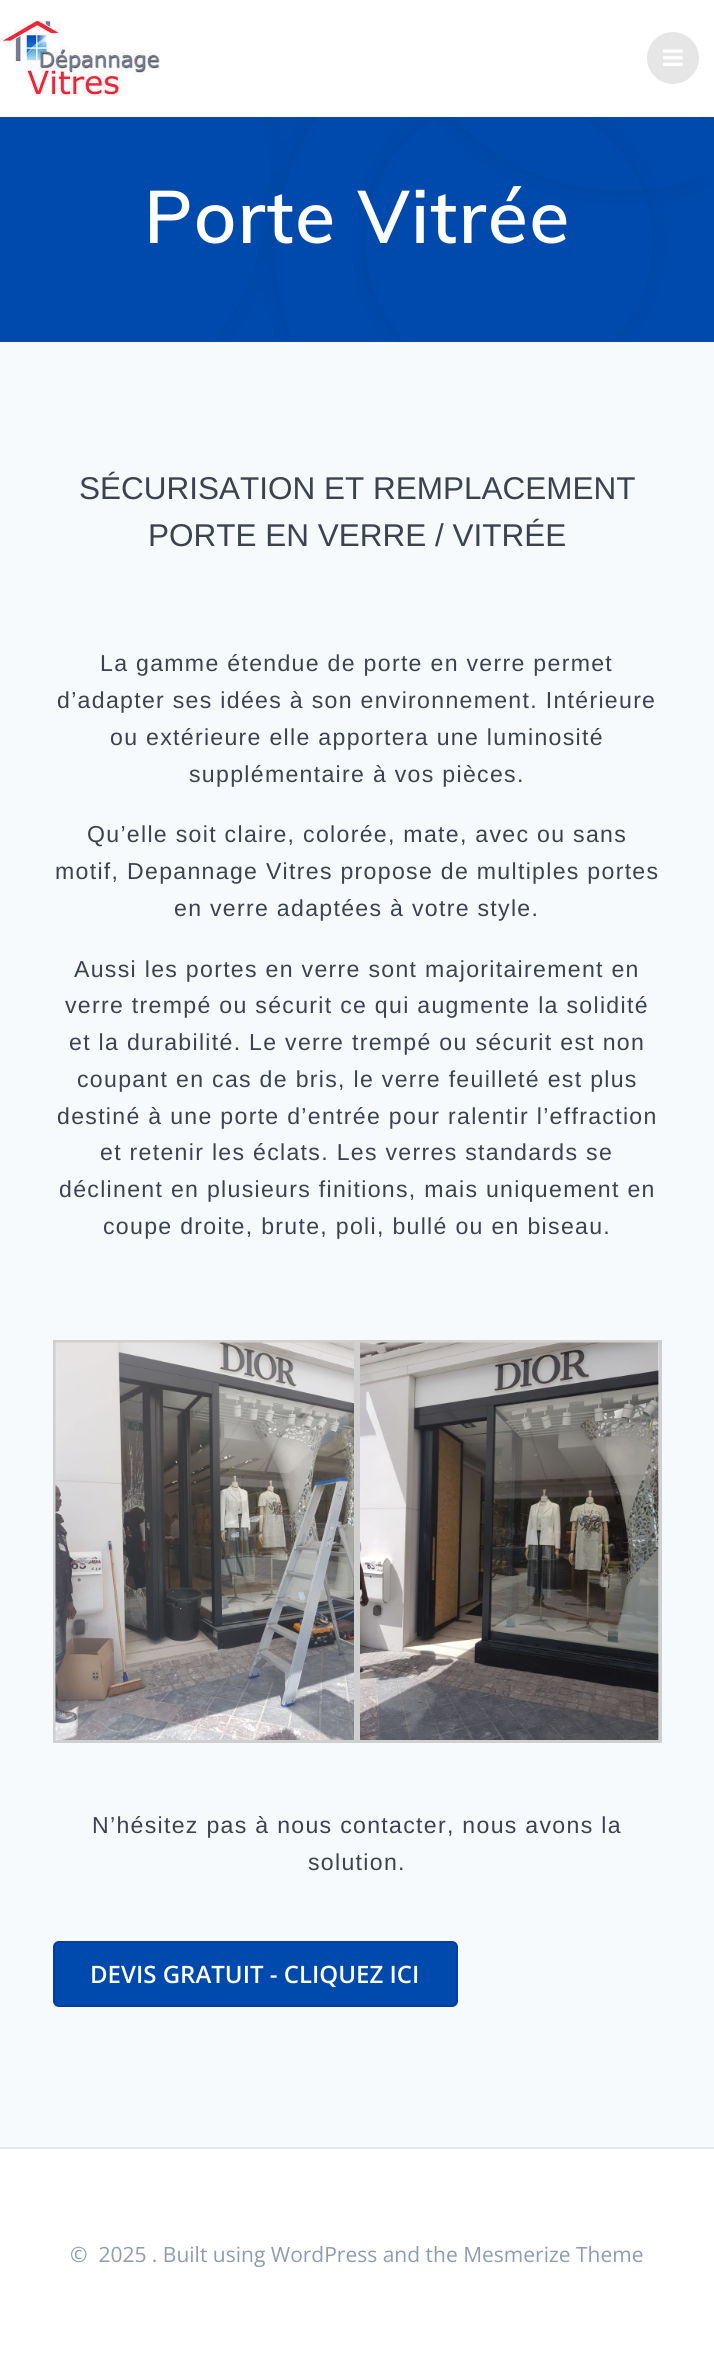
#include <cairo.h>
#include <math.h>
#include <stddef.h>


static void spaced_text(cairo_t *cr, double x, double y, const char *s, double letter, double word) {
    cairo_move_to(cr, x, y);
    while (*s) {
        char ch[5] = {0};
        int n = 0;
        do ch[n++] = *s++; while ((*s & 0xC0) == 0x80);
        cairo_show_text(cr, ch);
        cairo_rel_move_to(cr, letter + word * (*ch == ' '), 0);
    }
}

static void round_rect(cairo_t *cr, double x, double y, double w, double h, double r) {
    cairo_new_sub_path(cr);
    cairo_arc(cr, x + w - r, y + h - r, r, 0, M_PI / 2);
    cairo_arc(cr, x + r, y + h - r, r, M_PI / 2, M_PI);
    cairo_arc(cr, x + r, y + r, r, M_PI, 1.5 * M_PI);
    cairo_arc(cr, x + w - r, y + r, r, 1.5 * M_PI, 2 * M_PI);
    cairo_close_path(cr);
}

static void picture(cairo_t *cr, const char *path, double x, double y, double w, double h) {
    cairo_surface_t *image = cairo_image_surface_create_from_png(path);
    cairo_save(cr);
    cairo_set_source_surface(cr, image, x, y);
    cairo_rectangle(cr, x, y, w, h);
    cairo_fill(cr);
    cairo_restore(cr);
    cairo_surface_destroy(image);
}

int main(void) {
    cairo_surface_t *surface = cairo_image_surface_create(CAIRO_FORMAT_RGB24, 714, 2357);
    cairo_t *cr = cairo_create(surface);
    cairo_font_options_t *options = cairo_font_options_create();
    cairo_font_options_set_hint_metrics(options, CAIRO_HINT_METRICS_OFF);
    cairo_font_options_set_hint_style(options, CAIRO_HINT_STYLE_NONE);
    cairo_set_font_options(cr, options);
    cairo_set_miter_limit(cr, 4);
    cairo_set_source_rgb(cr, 0.961, 0.98, 0.992);
    cairo_paint(cr);
    cairo_set_source_rgb(cr, 1, 1, 1);
    cairo_rectangle(cr, 0, 0, 714, 117);
    cairo_fill(cr);
    picture(cr, "img1.png", 0, 21, 161, 75);
    cairo_set_source_rgb(cr, 0.902, 0.902, 0.902);
    cairo_arc(cr, 673, 58, 26, 0, 2 * M_PI);
    cairo_fill(cr);
    picture(cr, "img2.png", 663, 49, 20, 17);
    cairo_set_source_rgb(cr, 0, 0.29, 0.678);
    cairo_rectangle(cr, 0, 117, 714, 225);
    cairo_fill(cr);
    picture(cr, "img3.png", 214, 117, 497, 225);
    cairo_select_font_face(cr, "Muli SemiBold", CAIRO_FONT_SLANT_NORMAL, CAIRO_FONT_WEIGHT_NORMAL);
    cairo_set_font_size(cr, 73.5);
    cairo_set_source_rgb(cr, 1, 1, 1);
    spaced_text(cr, 144, 243, "Porte Vitrée", 1.4, 0);
    cairo_select_font_face(cr, "Liberation Sans", CAIRO_FONT_SLANT_NORMAL, CAIRO_FONT_WEIGHT_NORMAL);
    cairo_set_font_size(cr, 31.5);
    cairo_set_source_rgb(cr, 0.235, 0.259, 0.31);
    cairo_move_to(cr, 79, 499);
    cairo_show_text(cr, "SÉCURISATION ET REMPLACEMENT");
    cairo_move_to(cr, 148, 546);
    cairo_show_text(cr, "PORTE EN VERRE / VITRÉE");
    cairo_set_font_size(cr, 23.1);
    spaced_text(cr, 100, 671, "La gamme étendue de porte en verre permet", 1.3, 0);
    spaced_text(cr, 57, 708, "d’adapter ses idées à son environnement. Intérieure", 1.3, 0);
    spaced_text(cr, 110, 745, "ou extérieure elle apportera une luminosité", 1.3, 0);
    spaced_text(cr, 189, 782, "supplémentaire à vos pièces.", 1.3, 0);
    spaced_text(cr, 87, 842, "Qu’elle soit claire, colorée, mate, avec ou sans", 1.3, 0);
    spaced_text(cr, 55, 879, "motif, Depannage Vitres propose de multiples portes", 1.3, 0);
    spaced_text(cr, 174, 916, "en verre adaptées à votre style.", 1.3, 0);
    spaced_text(cr, 74, 977, "Aussi les portes en verre sont majoritairement en", 1.3, 0);
    spaced_text(cr, 65, 1013, "verre trempé ou sécurit ce qui augmente la solidité", 1.3, 0);
    spaced_text(cr, 69, 1050, "et la durabilité. Le verre trempé ou sécurit est non", 1.3, 0);
    spaced_text(cr, 77, 1087, "coupant en cas de bris, le verre feuilleté est plus", 1.3, 0);
    spaced_text(cr, 57, 1124, "destiné à une porte d’entrée pour ralentir l’effraction", 1.3, 0);
    spaced_text(cr, 100, 1160, "et retenir les éclats. Les verres standards se", 1.3, 0);
    spaced_text(cr, 59, 1197, "déclinent en plusieurs finitions, mais uniquement en", 1.3, 0);
    spaced_text(cr, 103, 1234, "coupe droite, brute, poli, bullé ou en biseau.", 1.3, 0);
    cairo_rectangle(cr, 54.5, 1341.5, 301, 400);
    cairo_set_source_rgb(cr, 0.812, 0.812, 0.812);
    cairo_set_line_width(cr, 3);
    cairo_stroke(cr);
    picture(cr, "img4.png", 55, 1342, 299, 398);
    cairo_rectangle(cr, 358.5, 1341.5, 302, 400);
    cairo_stroke(cr);
    picture(cr, "img5.png", 360, 1342, 299, 398);
    cairo_set_source_rgb(cr, 0.235, 0.259, 0.31);
    spaced_text(cr, 92, 1833, "N’hésitez pas à nous contacter, nous avons la", 1.3, 0);
    spaced_text(cr, 308, 1870, "solution.", 1.3, 0);
    cairo_set_source_rgb(cr, 0, 0.29, 0.678);
    round_rect(cr, 54, 1942, 403, 64, 5);
    cairo_fill_preserve(cr);
    cairo_set_source_rgb(cr, 0, 0.243, 0.631);
    cairo_set_line_width(cr, 2);
    cairo_stroke(cr);
    cairo_select_font_face(cr, "Open Sans SemiBold", CAIRO_FONT_SLANT_NORMAL, CAIRO_FONT_WEIGHT_NORMAL);
    cairo_set_font_size(cr, 24);
    cairo_set_source_rgb(cr, 1, 1, 1);
    cairo_move_to(cr, 90, 1983);
    cairo_show_text(cr, "DEVIS GRATUIT - CLIQUEZ ICI");
    cairo_rectangle(cr, 0, 2149, 714, 208);
    cairo_fill(cr);
    cairo_set_source_rgb(cr, 0.91, 0.91, 0.91);
    cairo_rectangle(cr, 0, 2147, 714, 2);
    cairo_fill(cr);
    cairo_select_font_face(cr, "Open Sans", CAIRO_FONT_SLANT_NORMAL, CAIRO_FONT_WEIGHT_NORMAL);
    cairo_set_font_size(cr, 21);
    cairo_set_source_rgb(cr, 0.557, 0.616, 0.682);
    cairo_move_to(cr, 70, 2262);
    cairo_show_text(cr, "©  2025 . Built using WordPress and the Mesmerize Theme");
    cairo_surface_write_to_png(surface, "page.png");
    cairo_font_options_destroy(options);
    cairo_destroy(cr);
    cairo_surface_destroy(surface);
    return 0;
}
